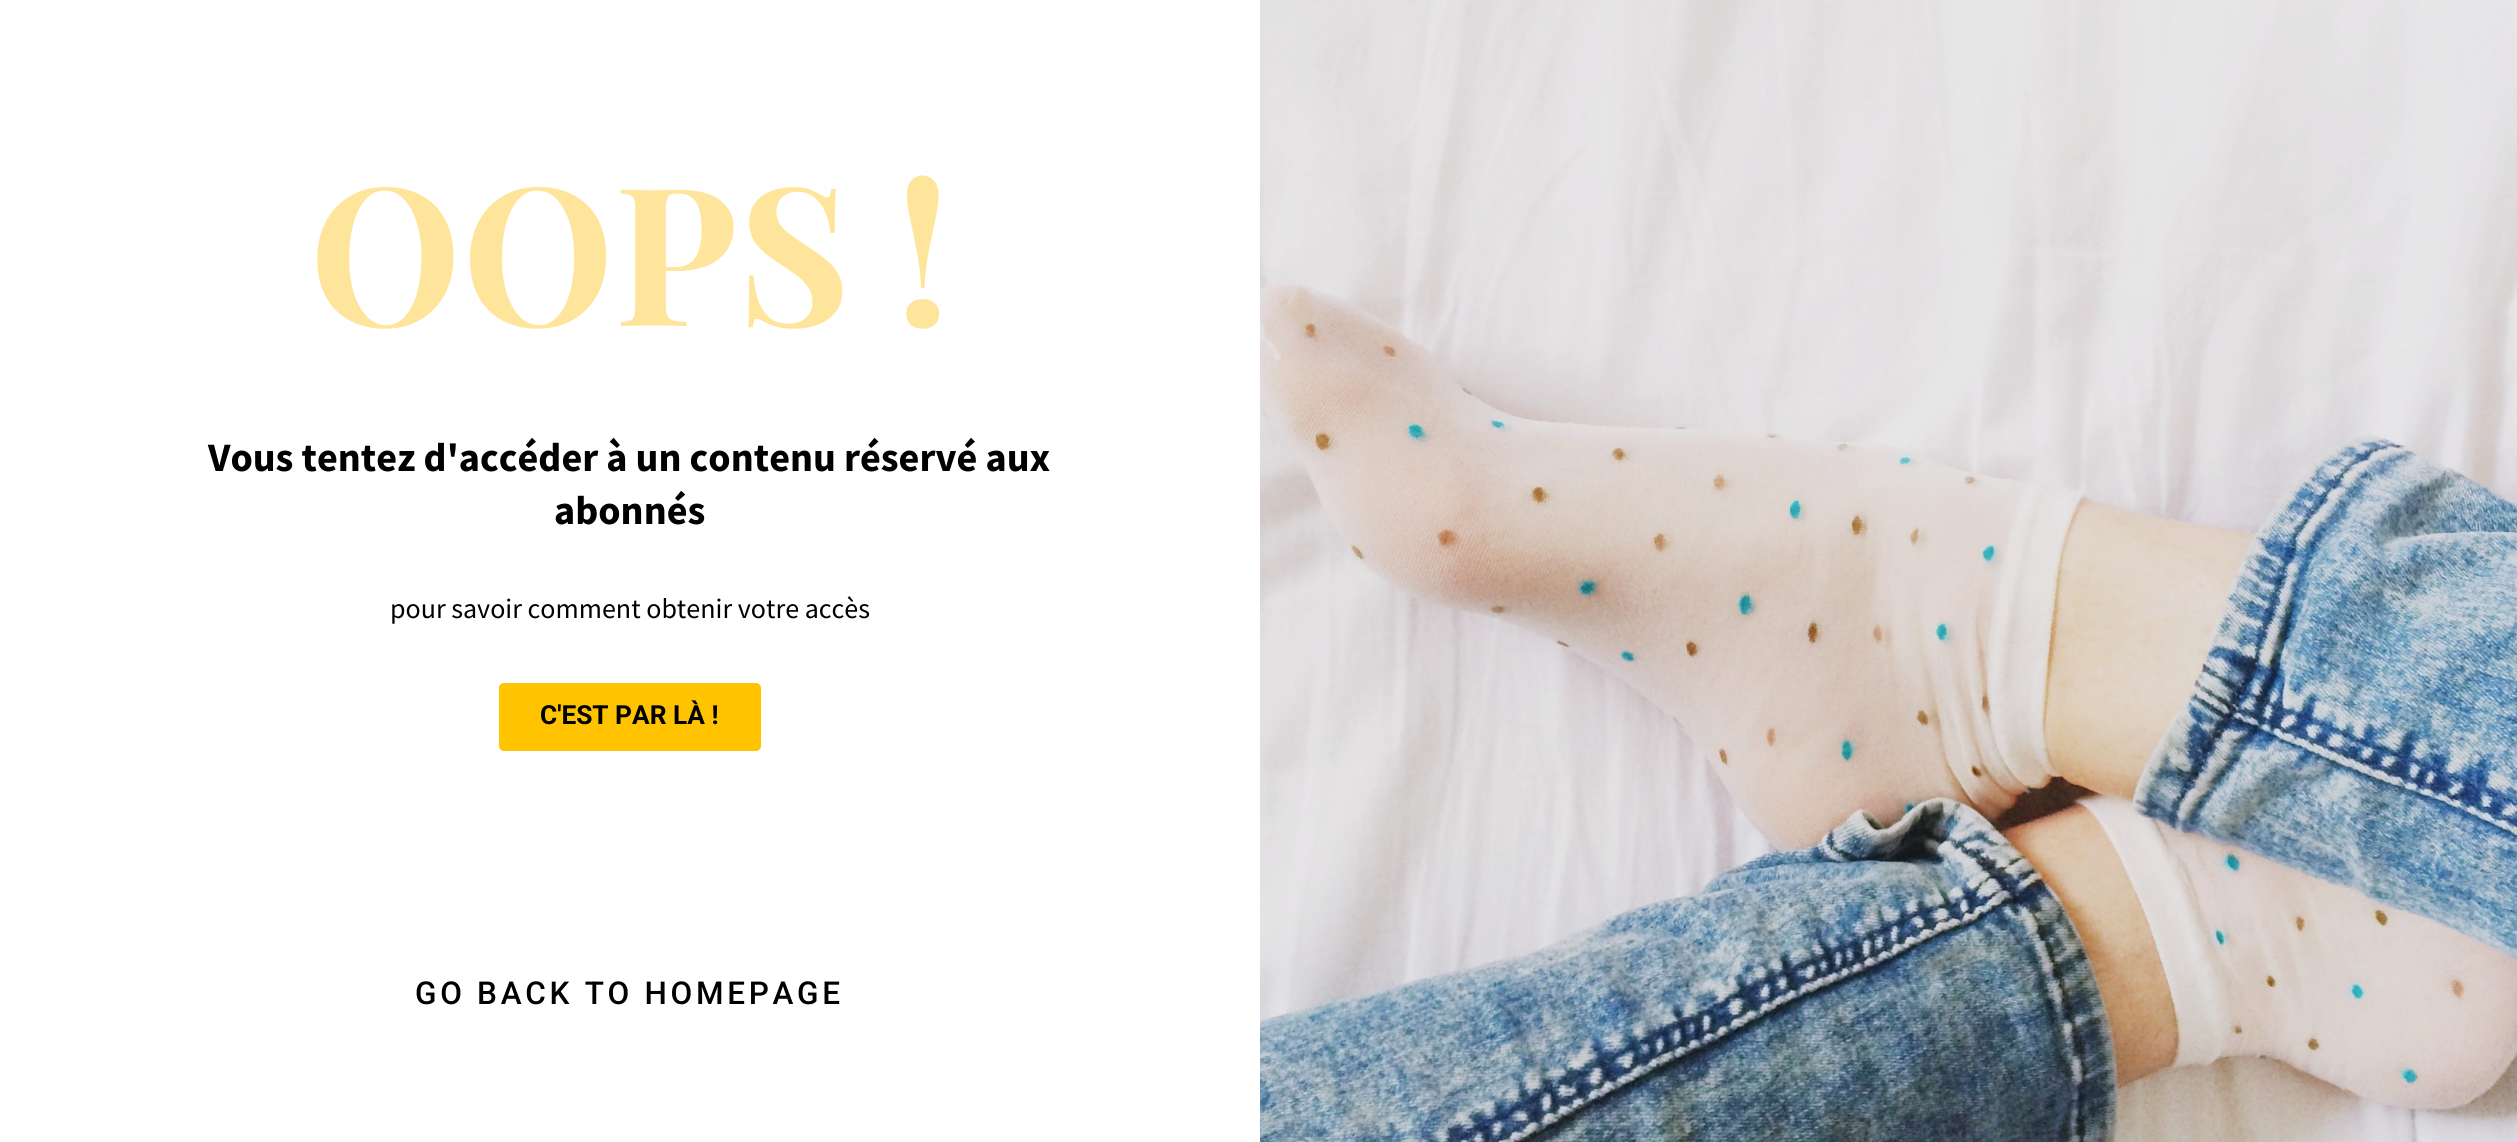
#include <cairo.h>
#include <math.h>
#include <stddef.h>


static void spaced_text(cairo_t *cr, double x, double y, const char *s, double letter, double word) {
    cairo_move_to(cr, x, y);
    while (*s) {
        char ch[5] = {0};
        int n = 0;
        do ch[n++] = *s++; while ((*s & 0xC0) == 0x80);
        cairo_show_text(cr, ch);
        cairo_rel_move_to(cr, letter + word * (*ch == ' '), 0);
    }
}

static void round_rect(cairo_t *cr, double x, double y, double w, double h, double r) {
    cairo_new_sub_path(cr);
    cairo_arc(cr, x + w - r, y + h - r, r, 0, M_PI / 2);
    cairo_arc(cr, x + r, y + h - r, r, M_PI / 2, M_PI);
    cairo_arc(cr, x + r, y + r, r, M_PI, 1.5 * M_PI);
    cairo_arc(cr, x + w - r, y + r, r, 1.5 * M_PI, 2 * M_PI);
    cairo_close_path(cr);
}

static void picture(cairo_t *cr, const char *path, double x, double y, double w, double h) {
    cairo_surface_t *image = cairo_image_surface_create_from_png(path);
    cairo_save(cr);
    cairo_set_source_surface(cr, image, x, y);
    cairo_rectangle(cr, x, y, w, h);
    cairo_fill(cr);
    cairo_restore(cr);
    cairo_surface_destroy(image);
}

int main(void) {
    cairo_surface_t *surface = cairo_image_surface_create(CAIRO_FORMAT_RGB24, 2517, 1142);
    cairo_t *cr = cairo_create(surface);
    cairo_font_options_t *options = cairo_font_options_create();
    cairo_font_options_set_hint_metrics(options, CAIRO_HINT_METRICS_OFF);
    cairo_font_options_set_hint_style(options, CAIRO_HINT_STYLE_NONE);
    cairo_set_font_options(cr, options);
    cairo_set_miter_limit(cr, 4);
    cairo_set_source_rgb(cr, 1, 1, 1);
    cairo_paint(cr);
    cairo_select_font_face(cr, "Playfair Display", CAIRO_FONT_SLANT_NORMAL, CAIRO_FONT_WEIGHT_BOLD);
    cairo_set_font_size(cr, 192.5);
    cairo_set_source_rgb(cr, 0.996, 0.898, 0.608);
    cairo_move_to(cr, 309, 326);
    cairo_show_text(cr, "OOPS !");
    cairo_select_font_face(cr, "Source Sans Pro", CAIRO_FONT_SLANT_NORMAL, CAIRO_FONT_WEIGHT_BOLD);
    cairo_set_font_size(cr, 40.25);
    cairo_set_source_rgb(cr, 0, 0, 0);
    cairo_move_to(cr, 208, 471);
    cairo_show_text(cr, "Vous tentez d'accéder à un contenu réservé aux");
    cairo_move_to(cr, 554, 524);
    cairo_show_text(cr, "abonnés");
    cairo_select_font_face(cr, "Source Sans Pro", CAIRO_FONT_SLANT_NORMAL, CAIRO_FONT_WEIGHT_NORMAL);
    cairo_set_font_size(cr, 28);
    cairo_move_to(cr, 390, 618);
    cairo_show_text(cr, "pour savoir comment obtenir votre accès");
    cairo_set_source_rgb(cr, 1, 0.765, 0);
    round_rect(cr, 499, 683, 262, 68, 5);
    cairo_fill(cr);
    cairo_select_font_face(cr, "Roboto", CAIRO_FONT_SLANT_NORMAL, CAIRO_FONT_WEIGHT_BOLD);
    cairo_set_font_size(cr, 26.25);
    cairo_set_source_rgb(cr, 0, 0, 0);
    cairo_move_to(cr, 540, 724);
    cairo_show_text(cr, "C'EST PAR LÀ !");
    cairo_select_font_face(cr, "Roboto Medium", CAIRO_FONT_SLANT_NORMAL, CAIRO_FONT_WEIGHT_NORMAL);
    cairo_set_font_size(cr, 31.5);
    spaced_text(cr, 415, 1004, "GO BACK TO HOMEPAGE", 3.7, 0);
    picture(cr, "img1.png", 1260, 0, 1257, 1142);
    cairo_surface_write_to_png(surface, "page.png");
    cairo_font_options_destroy(options);
    cairo_destroy(cr);
    cairo_surface_destroy(surface);
    return 0;
}
